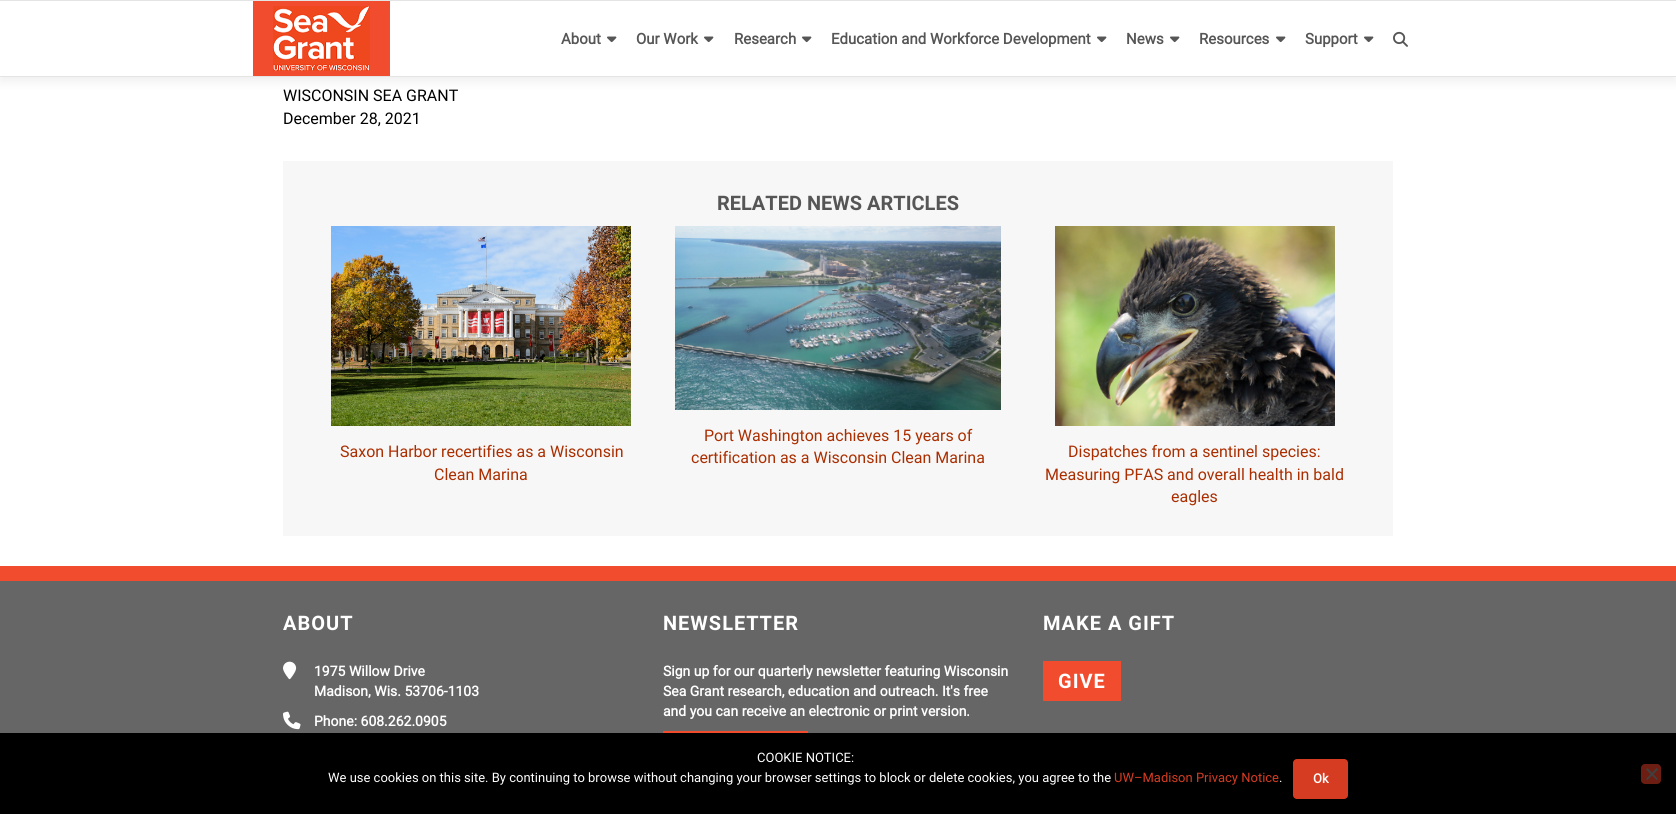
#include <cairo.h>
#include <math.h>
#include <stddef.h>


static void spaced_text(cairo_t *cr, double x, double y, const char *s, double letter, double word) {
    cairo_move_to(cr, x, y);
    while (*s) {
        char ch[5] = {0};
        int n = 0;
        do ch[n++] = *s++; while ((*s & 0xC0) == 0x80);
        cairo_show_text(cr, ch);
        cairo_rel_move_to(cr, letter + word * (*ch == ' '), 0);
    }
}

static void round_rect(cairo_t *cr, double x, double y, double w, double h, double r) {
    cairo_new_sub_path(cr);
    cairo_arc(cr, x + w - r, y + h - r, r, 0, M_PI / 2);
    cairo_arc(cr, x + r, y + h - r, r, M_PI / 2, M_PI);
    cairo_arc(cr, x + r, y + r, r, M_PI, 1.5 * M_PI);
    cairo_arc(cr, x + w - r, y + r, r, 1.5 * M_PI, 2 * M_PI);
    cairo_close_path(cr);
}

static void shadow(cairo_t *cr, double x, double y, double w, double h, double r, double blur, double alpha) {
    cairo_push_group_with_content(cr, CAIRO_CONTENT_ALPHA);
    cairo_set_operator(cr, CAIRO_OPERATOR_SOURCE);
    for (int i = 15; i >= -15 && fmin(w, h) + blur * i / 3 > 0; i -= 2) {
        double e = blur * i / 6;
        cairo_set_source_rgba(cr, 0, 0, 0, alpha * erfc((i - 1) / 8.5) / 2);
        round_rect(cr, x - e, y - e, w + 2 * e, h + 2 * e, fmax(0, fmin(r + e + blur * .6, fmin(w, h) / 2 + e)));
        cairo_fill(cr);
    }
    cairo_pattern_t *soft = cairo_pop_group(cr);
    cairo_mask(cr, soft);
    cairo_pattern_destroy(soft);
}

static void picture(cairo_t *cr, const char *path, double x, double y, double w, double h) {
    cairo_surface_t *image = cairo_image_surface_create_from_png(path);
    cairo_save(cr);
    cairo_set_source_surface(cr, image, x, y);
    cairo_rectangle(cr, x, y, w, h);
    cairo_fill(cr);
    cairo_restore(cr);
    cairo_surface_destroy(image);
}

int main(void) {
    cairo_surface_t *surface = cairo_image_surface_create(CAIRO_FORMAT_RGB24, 1676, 814);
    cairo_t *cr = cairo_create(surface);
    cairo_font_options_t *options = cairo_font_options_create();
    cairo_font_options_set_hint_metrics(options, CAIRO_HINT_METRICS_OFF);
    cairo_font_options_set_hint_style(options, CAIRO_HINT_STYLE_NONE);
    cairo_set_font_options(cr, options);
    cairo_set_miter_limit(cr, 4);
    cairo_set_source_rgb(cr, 0.4, 0.4, 0.4);
    cairo_paint(cr);
    cairo_set_source_rgb(cr, 1, 1, 1);
    cairo_rectangle(cr, 0, 77, 1676, 489);
    cairo_fill(cr);
    cairo_set_source_rgb(cr, 0.196, 0.196, 0.196);
    shadow(cr, 0, 5, 1676, 77, 0, 5.5, 0.08);
    cairo_set_source_rgb(cr, 1, 1, 1);
    cairo_rectangle(cr, 0, 1, 1676, 75);
    cairo_fill(cr);
    cairo_set_source_rgb(cr, 0.894, 0.894, 0.894);
    cairo_rectangle(cr, 0, 0, 1676, 1);
    cairo_fill(cr);
    cairo_rectangle(cr, 0, 76, 1676, 1);
    cairo_fill(cr);
    cairo_set_source_rgb(cr, 0.941, 0.298, 0.176);
    cairo_rectangle(cr, 253, 1, 137, 75);
    cairo_fill(cr);
    picture(cr, "img1.png", 273, 6, 97, 65);
    cairo_select_font_face(cr, "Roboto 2", CAIRO_FONT_SLANT_NORMAL, CAIRO_FONT_WEIGHT_BOLD);
    cairo_set_font_size(cr, 15);
    cairo_set_source_rgb(cr, 0.333, 0.337, 0.333);
    cairo_move_to(cr, 561, 44);
    cairo_show_text(cr, "About");
    picture(cr, "img2.png", 607, 36, 10, 7);
    cairo_move_to(cr, 636, 44);
    cairo_show_text(cr, "Our Work");
    picture(cr, "img2.png", 704, 36, 10, 7);
    cairo_move_to(cr, 734, 44);
    cairo_show_text(cr, "Research");
    picture(cr, "img2.png", 802, 36, 10, 7);
    cairo_move_to(cr, 831, 44);
    cairo_show_text(cr, "Education and Workforce Development");
    picture(cr, "img2.png", 1097, 36, 10, 7);
    cairo_move_to(cr, 1126, 44);
    cairo_show_text(cr, "News");
    picture(cr, "img2.png", 1170, 36, 10, 7);
    cairo_move_to(cr, 1199, 44);
    cairo_show_text(cr, "Resources");
    picture(cr, "img2.png", 1276, 36, 10, 7);
    cairo_move_to(cr, 1305, 44);
    cairo_show_text(cr, "Support");
    picture(cr, "img2.png", 1364, 36, 10, 7);
    picture(cr, "img3.png", 1393, 31, 15, 16);
    cairo_select_font_face(cr, "Roboto", CAIRO_FONT_SLANT_NORMAL, CAIRO_FONT_WEIGHT_NORMAL);
    cairo_set_font_size(cr, 16);
    cairo_set_source_rgb(cr, 0, 0, 0);
    cairo_move_to(cr, 283, 101);
    cairo_show_text(cr, "WISCONSIN SEA GRANT");
    cairo_move_to(cr, 283, 124);
    cairo_show_text(cr, "December 28, 2021");
    cairo_set_source_rgb(cr, 0.965, 0.965, 0.965);
    cairo_rectangle(cr, 283, 161, 1110, 375);
    cairo_fill(cr);
    cairo_select_font_face(cr, "Roboto", CAIRO_FONT_SLANT_NORMAL, CAIRO_FONT_WEIGHT_BOLD);
    cairo_set_font_size(cr, 20);
    cairo_set_source_rgb(cr, 0.333, 0.337, 0.333);
    cairo_move_to(cr, 717, 210);
    cairo_show_text(cr, "RELATED NEWS ARTICLES");
    picture(cr, "img4.png", 331, 226, 300, 200);
    cairo_select_font_face(cr, "Roboto", CAIRO_FONT_SLANT_NORMAL, CAIRO_FONT_WEIGHT_NORMAL);
    cairo_set_font_size(cr, 16);
    cairo_set_source_rgb(cr, 0.667, 0.18, 0);
    cairo_move_to(cr, 340, 457);
    cairo_show_text(cr, "Saxon Harbor recertifies as a Wisconsin");
    cairo_move_to(cr, 434, 480);
    cairo_show_text(cr, "Clean Marina");
    picture(cr, "img5.png", 675, 226, 326, 184);
    cairo_move_to(cr, 704, 441);
    cairo_show_text(cr, "Port Washington achieves 15 years of");
    cairo_move_to(cr, 691, 463);
    cairo_show_text(cr, "certification as a Wisconsin Clean Marina");
    picture(cr, "img6.png", 1055, 226, 280, 200);
    cairo_move_to(cr, 1068, 457);
    cairo_show_text(cr, "Dispatches from a sentinel species:");
    cairo_move_to(cr, 1045, 480);
    cairo_show_text(cr, "Measuring PFAS and overall health in bald");
    cairo_move_to(cr, 1171, 502);
    cairo_show_text(cr, "eagles");
    cairo_set_source_rgb(cr, 0.941, 0.298, 0.176);
    cairo_rectangle(cr, 0, 566, 1676, 15);
    cairo_fill(cr);
    cairo_select_font_face(cr, "Roboto", CAIRO_FONT_SLANT_NORMAL, CAIRO_FONT_WEIGHT_BOLD);
    cairo_set_font_size(cr, 20);
    cairo_set_source_rgb(cr, 1, 1, 1);
    spaced_text(cr, 283, 630, "ABOUT", 1, 0);
    picture(cr, "img7.png", 283, 661, 14, 19);
    cairo_select_font_face(cr, "Roboto 2", CAIRO_FONT_SLANT_NORMAL, CAIRO_FONT_WEIGHT_BOLD);
    cairo_set_font_size(cr, 14);
    cairo_move_to(cr, 314, 676);
    cairo_show_text(cr, "1975 Willow Drive");
    cairo_move_to(cr, 314, 696);
    cairo_show_text(cr, "Madison, Wis. 53706-1103");
    picture(cr, "img8.png", 283, 711, 18, 19);
    cairo_move_to(cr, 314, 726);
    cairo_show_text(cr, "Phone: 608.262.0905");
    cairo_select_font_face(cr, "Roboto", CAIRO_FONT_SLANT_NORMAL, CAIRO_FONT_WEIGHT_BOLD);
    cairo_set_font_size(cr, 20);
    spaced_text(cr, 663, 630, "NEWSLETTER", 1, 0);
    cairo_select_font_face(cr, "Roboto 2", CAIRO_FONT_SLANT_NORMAL, CAIRO_FONT_WEIGHT_BOLD);
    cairo_set_font_size(cr, 14);
    cairo_move_to(cr, 663, 676);
    cairo_show_text(cr, "Sign up for our quarterly newsletter featuring Wisconsin");
    cairo_move_to(cr, 663, 696);
    cairo_show_text(cr, "Sea Grant research, education and outreach. It's free");
    cairo_move_to(cr, 663, 716);
    cairo_show_text(cr, "and you can receive an electronic or print version.");
    cairo_set_source_rgb(cr, 0.941, 0.298, 0.176);
    cairo_rectangle(cr, 663, 731, 145, 2);
    cairo_fill(cr);
    cairo_select_font_face(cr, "Roboto", CAIRO_FONT_SLANT_NORMAL, CAIRO_FONT_WEIGHT_BOLD);
    cairo_set_font_size(cr, 20);
    cairo_set_source_rgb(cr, 1, 1, 1);
    spaced_text(cr, 1043, 630, "MAKE A GIFT", 1, 0);
    cairo_set_source_rgb(cr, 0.941, 0.298, 0.176);
    cairo_rectangle(cr, 1043, 661, 78, 40);
    cairo_fill(cr);
    cairo_set_source_rgb(cr, 1, 1, 1);
    spaced_text(cr, 1058, 688, "GIVE", 1, 0);
    cairo_set_source_rgb(cr, 0, 0, 0);
    cairo_rectangle(cr, 0, 733, 1676, 81);
    cairo_fill(cr);
    cairo_select_font_face(cr, "Roboto", CAIRO_FONT_SLANT_NORMAL, CAIRO_FONT_WEIGHT_NORMAL);
    cairo_set_font_size(cr, 13);
    cairo_set_source_rgb(cr, 1, 1, 1);
    cairo_move_to(cr, 757, 762);
    cairo_show_text(cr, "COOKIE NOTICE:");
    cairo_move_to(cr, 328, 782);
    cairo_show_text(cr, "We use cookies on this site. By continuing to browse without changing your browser settings to block or delete cookies, you agree to the");
    cairo_set_source_rgb(cr, 0.839, 0.235, 0.133);
    cairo_move_to(cr, 1114, 782);
    cairo_show_text(cr, "UW–Madison Privacy Notice");
    cairo_set_source_rgb(cr, 1, 1, 1);
    cairo_move_to(cr, 1279, 782);
    cairo_show_text(cr, ".");
    cairo_set_source_rgb(cr, 0.839, 0.235, 0.133);
    round_rect(cr, 1293, 759, 55, 40, 4);
    cairo_fill(cr);
    cairo_select_font_face(cr, "Roboto 2", CAIRO_FONT_SLANT_NORMAL, CAIRO_FONT_WEIGHT_BOLD);
    cairo_set_source_rgb(cr, 1, 1, 1);
    cairo_move_to(cr, 1313, 783);
    cairo_show_text(cr, "Ok");
    cairo_set_source_rgb(cr, 0.42, 0.118, 0.067);
    round_rect(cr, 1641, 764, 20, 20, 4);
    cairo_fill(cr);
    cairo_set_source_rgb(cr, 0.251, 0.251, 0.251);
    cairo_new_path(cr);
    cairo_move_to(cr, 1656.5, 768);
    cairo_line_to(cr, 1658, 769.5);
    cairo_line_to(cr, 1647.5, 780);
    cairo_line_to(cr, 1646, 779);
    cairo_close_path(cr);
    cairo_fill(cr);
    cairo_new_path(cr);
    cairo_move_to(cr, 1646, 769.5);
    cairo_line_to(cr, 1647.5, 768);
    cairo_line_to(cr, 1658, 779);
    cairo_line_to(cr, 1656.5, 780);
    cairo_close_path(cr);
    cairo_fill(cr);
    cairo_surface_write_to_png(surface, "page.png");
    cairo_font_options_destroy(options);
    cairo_destroy(cr);
    cairo_surface_destroy(surface);
    return 0;
}
